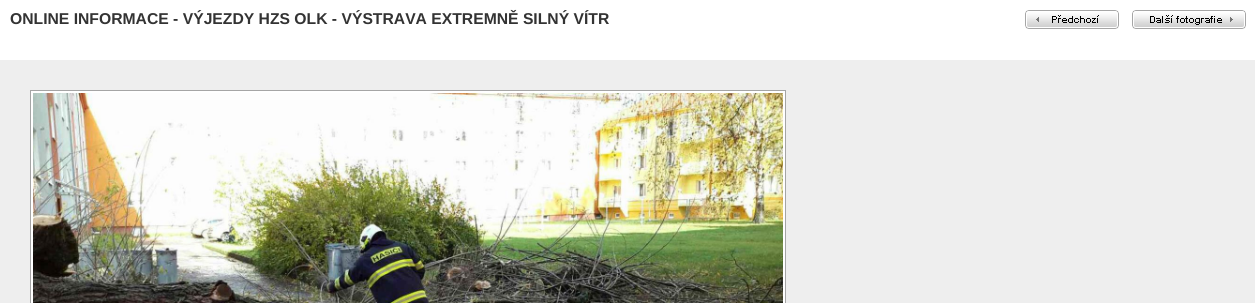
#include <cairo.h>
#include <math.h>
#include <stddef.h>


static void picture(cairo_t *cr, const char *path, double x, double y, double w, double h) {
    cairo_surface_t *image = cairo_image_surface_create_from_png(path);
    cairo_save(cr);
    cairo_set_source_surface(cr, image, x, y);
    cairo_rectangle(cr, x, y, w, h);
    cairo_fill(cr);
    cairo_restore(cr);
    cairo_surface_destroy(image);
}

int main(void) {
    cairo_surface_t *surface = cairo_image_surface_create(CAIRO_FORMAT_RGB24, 1255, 303);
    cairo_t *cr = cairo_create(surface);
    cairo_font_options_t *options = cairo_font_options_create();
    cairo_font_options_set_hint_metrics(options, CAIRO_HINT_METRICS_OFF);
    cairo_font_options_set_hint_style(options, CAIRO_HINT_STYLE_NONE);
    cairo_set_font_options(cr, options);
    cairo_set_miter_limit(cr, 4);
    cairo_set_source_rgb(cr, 1, 1, 1);
    cairo_paint(cr);
    cairo_select_font_face(cr, "Liberation Sans", CAIRO_FONT_SLANT_NORMAL, CAIRO_FONT_WEIGHT_BOLD);
    cairo_set_font_size(cr, 15.7);
    cairo_set_source_rgb(cr, 0.2, 0.2, 0.2);
    cairo_move_to(cr, 10, 24);
    cairo_show_text(cr, "ONLINE INFORMACE - VÝJEZDY HZS OLK - VÝSTRAVA EXTREMNĚ SILNÝ VÍTR");
    cairo_set_source_rgb(cr, 0.933, 0.933, 0.933);
    cairo_rectangle(cr, 0, 60, 1255, 243);
    cairo_fill(cr);
    picture(cr, "img1.png", 1025, 10, 94, 19);
    picture(cr, "img2.png", 1132, 10, 114, 19);
    cairo_set_source_rgb(cr, 1, 1, 1);
    cairo_rectangle(cr, 30.5, 90.5, 755, 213);
    cairo_fill_preserve(cr);
    cairo_set_source_rgb(cr, 0.647, 0.647, 0.647);
    cairo_set_line_width(cr, 1);
    cairo_stroke(cr);
    picture(cr, "img3.png", 33, 93, 750, 210);
    cairo_surface_write_to_png(surface, "page.png");
    cairo_font_options_destroy(options);
    cairo_destroy(cr);
    cairo_surface_destroy(surface);
    return 0;
}
